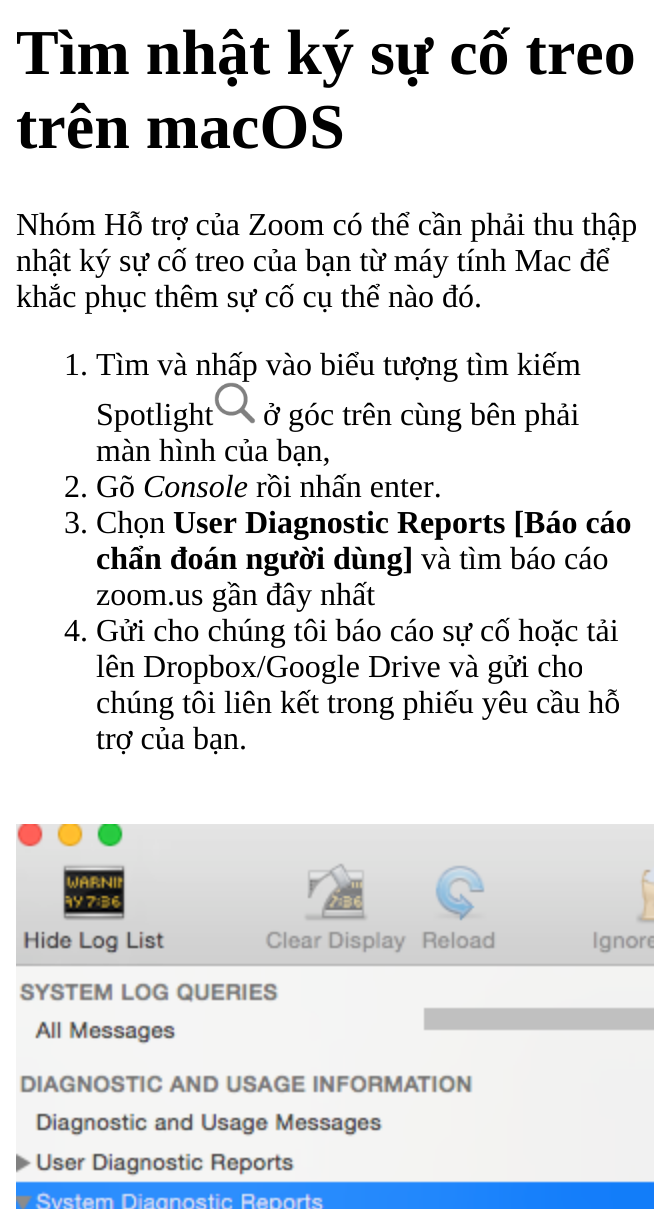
#include <cairo.h>
#include <math.h>
#include <stddef.h>


static void picture(cairo_t *cr, const char *path, double x, double y, double w, double h) {
    cairo_surface_t *image = cairo_image_surface_create_from_png(path);
    cairo_save(cr);
    cairo_set_source_surface(cr, image, x, y);
    cairo_rectangle(cr, x, y, w, h);
    cairo_fill(cr);
    cairo_restore(cr);
    cairo_surface_destroy(image);
}

int main(void) {
    cairo_surface_t *surface = cairo_image_surface_create(CAIRO_FORMAT_RGB24, 654, 1209);
    cairo_t *cr = cairo_create(surface);
    cairo_font_options_t *options = cairo_font_options_create();
    cairo_font_options_set_hint_metrics(options, CAIRO_HINT_METRICS_OFF);
    cairo_font_options_set_hint_style(options, CAIRO_HINT_STYLE_NONE);
    cairo_set_font_options(cr, options);
    cairo_set_miter_limit(cr, 4);
    cairo_set_source_rgb(cr, 1, 1, 1);
    cairo_paint(cr);
    cairo_select_font_face(cr, "Liberation Serif", CAIRO_FONT_SLANT_NORMAL, CAIRO_FONT_WEIGHT_BOLD);
    cairo_set_font_size(cr, 64);
    cairo_set_source_rgb(cr, 0, 0, 0);
    cairo_move_to(cr, 16, 74);
    cairo_show_text(cr, "Tìm nhật ký sự cố treo");
    cairo_move_to(cr, 16, 148);
    cairo_show_text(cr, "trên macOS");
    cairo_select_font_face(cr, "Liberation Serif", CAIRO_FONT_SLANT_NORMAL, CAIRO_FONT_WEIGHT_NORMAL);
    cairo_set_font_size(cr, 32);
    cairo_move_to(cr, 16, 235);
    cairo_show_text(cr, "Nhóm Hỗ trợ của Zoom có thể cần phải thu thập");
    cairo_move_to(cr, 16, 271);
    cairo_show_text(cr, "nhật ký sự cố treo của bạn từ máy tính Mac để");
    cairo_move_to(cr, 16, 307);
    cairo_show_text(cr, "khắc phục thêm sự cố cụ thể nào đó.");
    cairo_move_to(cr, 64, 375);
    cairo_show_text(cr, "1. Tìm và nhấp vào biểu tượng tìm kiếm");
    cairo_move_to(cr, 96, 425);
    cairo_show_text(cr, "Spotlight");
    picture(cr, "img1.png", 214, 382, 42, 42);
    cairo_move_to(cr, 263, 425);
    cairo_show_text(cr, "ở góc trên cùng bên phải");
    cairo_move_to(cr, 96, 461);
    cairo_show_text(cr, "màn hình của bạn,");
    cairo_move_to(cr, 64, 497);
    cairo_show_text(cr, "2. Gõ");
    cairo_select_font_face(cr, "Liberation Serif", CAIRO_FONT_SLANT_ITALIC, CAIRO_FONT_WEIGHT_NORMAL);
    cairo_move_to(cr, 143, 497);
    cairo_show_text(cr, "Console");
    cairo_select_font_face(cr, "Liberation Serif", CAIRO_FONT_SLANT_NORMAL, CAIRO_FONT_WEIGHT_NORMAL);
    cairo_move_to(cr, 256, 497);
    cairo_show_text(cr, "rồi nhấn enter.");
    cairo_move_to(cr, 64, 533);
    cairo_show_text(cr, "3. Chọn");
    cairo_select_font_face(cr, "Liberation Serif", CAIRO_FONT_SLANT_NORMAL, CAIRO_FONT_WEIGHT_BOLD);
    cairo_move_to(cr, 173, 533);
    cairo_show_text(cr, "User Diagnostic Reports [Báo cáo");
    cairo_move_to(cr, 96, 569);
    cairo_show_text(cr, "chẩn đoán người dùng]");
    cairo_select_font_face(cr, "Liberation Serif", CAIRO_FONT_SLANT_NORMAL, CAIRO_FONT_WEIGHT_NORMAL);
    cairo_move_to(cr, 421, 569);
    cairo_show_text(cr, "và tìm báo cáo");
    cairo_move_to(cr, 96, 605);
    cairo_show_text(cr, "zoom.us gần đây nhất");
    cairo_move_to(cr, 64, 641);
    cairo_show_text(cr, "4. Gửi cho chúng tôi báo cáo sự cố hoặc tải");
    cairo_move_to(cr, 96, 677);
    cairo_show_text(cr, "lên Dropbox/Google Drive và gửi cho");
    cairo_move_to(cr, 96, 713);
    cairo_show_text(cr, "chúng tôi liên kết trong phiếu yêu cầu hỗ");
    cairo_move_to(cr, 96, 749);
    cairo_show_text(cr, "trợ của bạn.");
    picture(cr, "img2.png", 16, 824, 638, 385);
    cairo_surface_write_to_png(surface, "page.png");
    cairo_font_options_destroy(options);
    cairo_destroy(cr);
    cairo_surface_destroy(surface);
    return 0;
}
